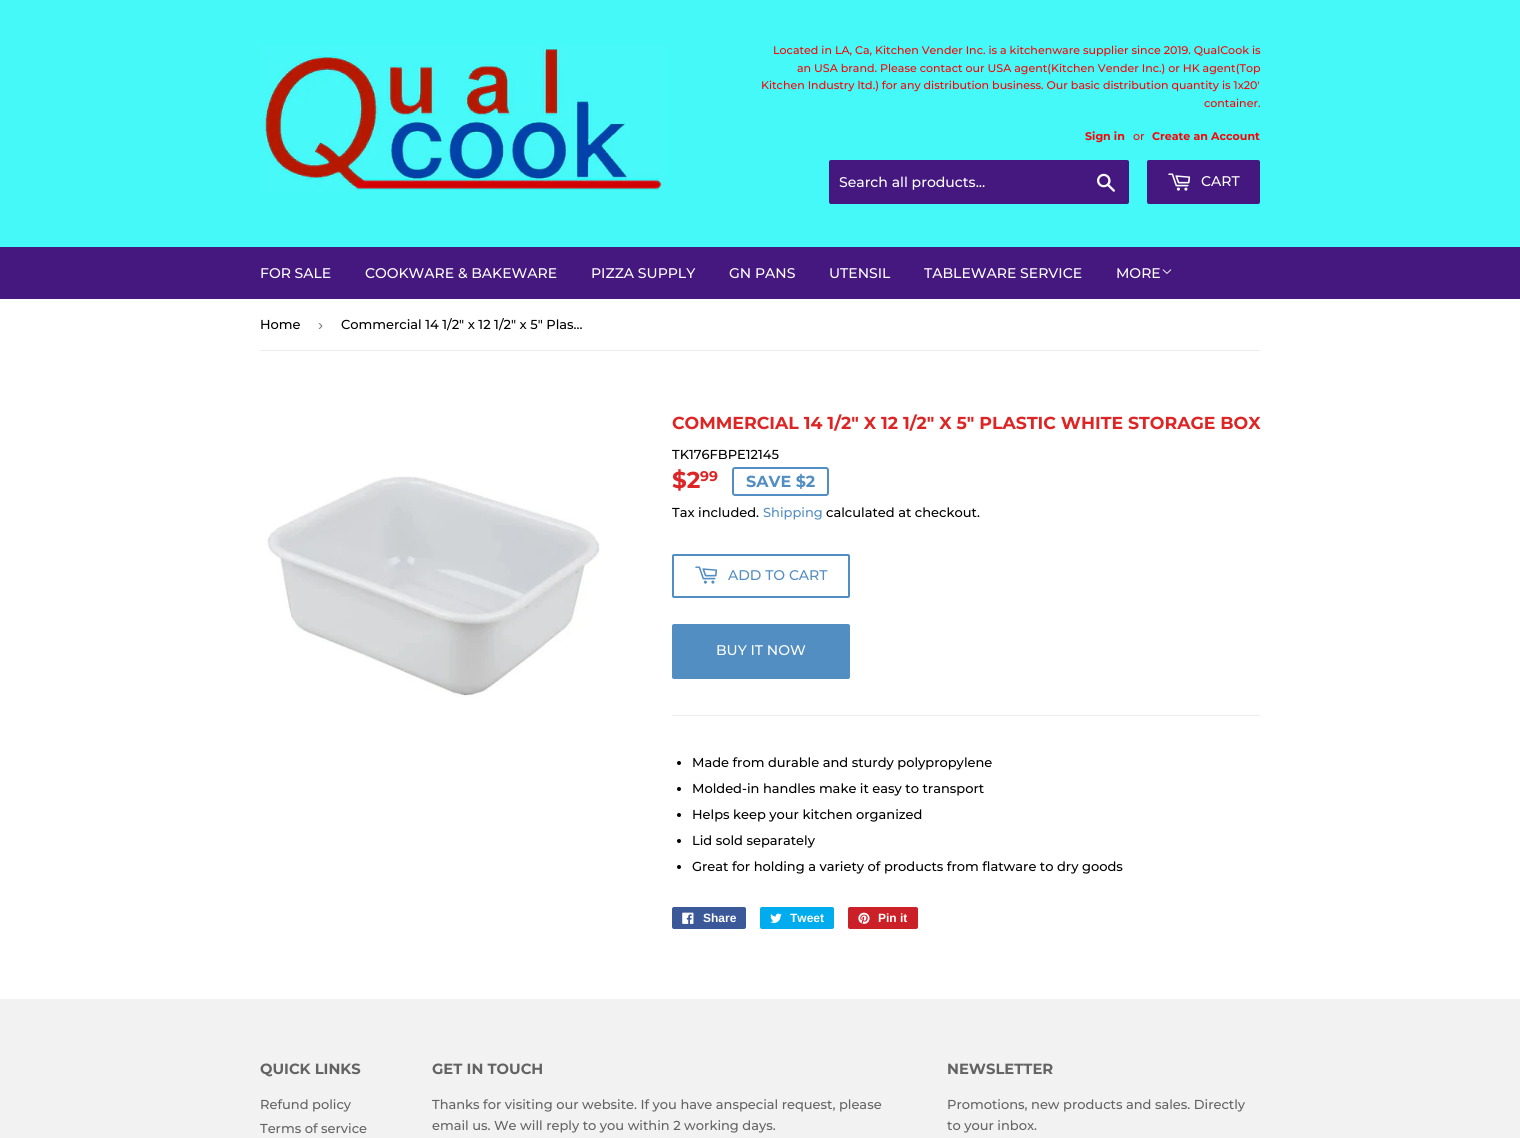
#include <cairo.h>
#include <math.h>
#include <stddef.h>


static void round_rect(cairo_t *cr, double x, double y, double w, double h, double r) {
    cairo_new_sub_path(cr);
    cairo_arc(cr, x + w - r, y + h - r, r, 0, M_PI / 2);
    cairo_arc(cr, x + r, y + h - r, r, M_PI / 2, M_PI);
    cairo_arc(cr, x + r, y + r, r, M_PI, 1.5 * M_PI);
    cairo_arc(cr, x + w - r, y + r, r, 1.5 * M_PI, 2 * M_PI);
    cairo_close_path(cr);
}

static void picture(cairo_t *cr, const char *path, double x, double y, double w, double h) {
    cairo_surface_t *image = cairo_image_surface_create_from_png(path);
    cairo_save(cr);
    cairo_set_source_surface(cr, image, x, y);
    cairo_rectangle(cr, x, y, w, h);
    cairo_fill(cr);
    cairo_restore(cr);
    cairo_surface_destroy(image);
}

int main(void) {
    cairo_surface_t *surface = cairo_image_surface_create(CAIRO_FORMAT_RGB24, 1520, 1138);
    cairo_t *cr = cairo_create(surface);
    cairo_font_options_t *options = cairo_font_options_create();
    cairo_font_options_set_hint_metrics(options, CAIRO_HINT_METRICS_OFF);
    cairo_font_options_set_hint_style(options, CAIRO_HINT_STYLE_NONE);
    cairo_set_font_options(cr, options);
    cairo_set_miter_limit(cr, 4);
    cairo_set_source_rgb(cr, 1, 1, 1);
    cairo_paint(cr);
    cairo_set_source_rgb(cr, 0.275, 0.976, 0.976);
    cairo_rectangle(cr, 0, 0, 1520, 247);
    cairo_fill(cr);
    picture(cr, "img1.png", 260, 45, 405, 147);
    cairo_select_font_face(cr, "Montserrat Medium", CAIRO_FONT_SLANT_NORMAL, CAIRO_FONT_WEIGHT_NORMAL);
    cairo_set_font_size(cr, 11.05);
    cairo_set_source_rgb(cr, 0.98, 0.008, 0.008);
    cairo_move_to(cr, 773, 54);
    cairo_show_text(cr, "Located in LA, Ca, Kitchen Vender Inc. is a kitchenware supplier since 2019. QualCook is");
    cairo_move_to(cr, 797, 72);
    cairo_show_text(cr, "an USA brand. Please contact our USA agent(Kitchen Vender Inc.) or HK agent(Top");
    cairo_move_to(cr, 761, 89);
    cairo_show_text(cr, "Kitchen Industry ltd.) for any distribution business. Our basic distribution quantity is 1x20'");
    cairo_move_to(cr, 1204, 107);
    cairo_show_text(cr, "container.");
    cairo_select_font_face(cr, "Montserrat", CAIRO_FONT_SLANT_NORMAL, CAIRO_FONT_WEIGHT_BOLD);
    cairo_move_to(cr, 1085, 140);
    cairo_show_text(cr, "Sign in");
    cairo_select_font_face(cr, "Montserrat Medium", CAIRO_FONT_SLANT_NORMAL, CAIRO_FONT_WEIGHT_NORMAL);
    cairo_move_to(cr, 1133, 140);
    cairo_show_text(cr, "or");
    cairo_select_font_face(cr, "Montserrat", CAIRO_FONT_SLANT_NORMAL, CAIRO_FONT_WEIGHT_BOLD);
    cairo_move_to(cr, 1152, 140);
    cairo_show_text(cr, "Create an Account");
    cairo_set_source_rgb(cr, 0.267, 0.094, 0.494);
    round_rect(cr, 829, 160, 300, 44, 2);
    cairo_fill(cr);
    cairo_select_font_face(cr, "Montserrat Medium", CAIRO_FONT_SLANT_NORMAL, CAIRO_FONT_WEIGHT_NORMAL);
    cairo_set_font_size(cr, 14);
    cairo_set_source_rgb(cr, 1, 1, 1);
    cairo_move_to(cr, 839, 187);
    cairo_show_text(cr, "Search all products...");
    picture(cr, "img2.png", 1097, 173, 18, 19);
    cairo_set_source_rgb(cr, 0.267, 0.094, 0.494);
    round_rect(cr, 1147, 160, 113, 44, 2);
    cairo_fill(cr);
    picture(cr, "img3.png", 1168, 173, 23, 18);
    cairo_set_source_rgb(cr, 1, 1, 1);
    cairo_move_to(cr, 1201, 186);
    cairo_show_text(cr, "CART");
    cairo_set_source_rgb(cr, 0.267, 0.094, 0.494);
    cairo_rectangle(cr, 0, 247, 1520, 52);
    cairo_fill(cr);
    cairo_set_source_rgb(cr, 1, 1, 1);
    cairo_move_to(cr, 260, 278);
    cairo_show_text(cr, "FOR SALE");
    cairo_move_to(cr, 365, 278);
    cairo_show_text(cr, "COOKWARE & BAKEWARE");
    cairo_move_to(cr, 591, 278);
    cairo_show_text(cr, "PIZZA SUPPLY");
    cairo_move_to(cr, 729, 278);
    cairo_show_text(cr, "GN PANS");
    cairo_move_to(cr, 829, 278);
    cairo_show_text(cr, "UTENSIL");
    cairo_move_to(cr, 924, 278);
    cairo_show_text(cr, "TABLEWARE SERVICE");
    cairo_move_to(cr, 1116, 278);
    cairo_show_text(cr, "MORE");
    picture(cr, "img4.png", 1162, 269, 10, 5);
    cairo_set_source_rgb(cr, 0.925, 0.925, 0.925);
    cairo_rectangle(cr, 260, 350, 1000, 1);
    cairo_fill(cr);
    cairo_set_font_size(cr, 13);
    cairo_set_source_rgb(cr, 0, 0, 0);
    cairo_move_to(cr, 260, 329);
    cairo_show_text(cr, "Home");
    cairo_select_font_face(cr, "Liberation Sans", CAIRO_FONT_SLANT_NORMAL, CAIRO_FONT_WEIGHT_NORMAL);
    cairo_set_font_size(cr, 15);
    cairo_set_source_rgb(cr, 0.463, 0.463, 0.463);
    cairo_move_to(cr, 318, 330);
    cairo_show_text(cr, "›");
    cairo_select_font_face(cr, "Montserrat Medium", CAIRO_FONT_SLANT_NORMAL, CAIRO_FONT_WEIGHT_NORMAL);
    cairo_set_font_size(cr, 13);
    cairo_set_source_rgb(cr, 0, 0, 0);
    cairo_move_to(cr, 341, 329);
    cairo_show_text(cr, "Commercial 14 1/2\" x 12 1/2\" x 5\" Plas…");
    picture(cr, "img5.png", 267, 476, 333, 221);
    cairo_select_font_face(cr, "Montserrat", CAIRO_FONT_SLANT_NORMAL, CAIRO_FONT_WEIGHT_BOLD);
    cairo_set_font_size(cr, 17.35);
    cairo_set_source_rgb(cr, 0.867, 0.145, 0.145);
    cairo_move_to(cr, 672, 429);
    cairo_show_text(cr, "COMMERCIAL 14 1/2\" X 12 1/2\" X 5\" PLASTIC WHITE STORAGE BOX");
    cairo_select_font_face(cr, "Montserrat Medium", CAIRO_FONT_SLANT_NORMAL, CAIRO_FONT_WEIGHT_NORMAL);
    cairo_set_font_size(cr, 13);
    cairo_set_source_rgb(cr, 0, 0, 0);
    cairo_move_to(cr, 672, 459);
    cairo_show_text(cr, "TK176FBPE12145");
    cairo_select_font_face(cr, "Montserrat", CAIRO_FONT_SLANT_NORMAL, CAIRO_FONT_WEIGHT_BOLD);
    cairo_set_font_size(cr, 23);
    cairo_set_source_rgb(cr, 0.867, 0.145, 0.145);
    cairo_move_to(cr, 672, 488);
    cairo_show_text(cr, "$2");
    cairo_set_font_size(cr, 14);
    cairo_move_to(cr, 700, 481);
    cairo_show_text(cr, "99");
    round_rect(cr, 733, 468, 95, 27, 2);
    cairo_set_source_rgb(cr, 0.322, 0.557, 0.757);
    cairo_stroke(cr);
    cairo_set_font_size(cr, 16);
    cairo_move_to(cr, 746, 487);
    cairo_show_text(cr, "SAVE $2");
    cairo_select_font_face(cr, "Montserrat Medium", CAIRO_FONT_SLANT_NORMAL, CAIRO_FONT_WEIGHT_NORMAL);
    cairo_set_font_size(cr, 13);
    cairo_set_source_rgb(cr, 0, 0, 0);
    cairo_move_to(cr, 672, 517);
    cairo_show_text(cr, "Tax included.");
    cairo_set_source_rgb(cr, 0.322, 0.557, 0.757);
    cairo_move_to(cr, 763, 517);
    cairo_show_text(cr, "Shipping");
    cairo_set_source_rgb(cr, 0, 0, 0);
    cairo_move_to(cr, 826, 517);
    cairo_show_text(cr, "calculated at checkout.");
    round_rect(cr, 673, 555, 176, 42, 1);
    cairo_set_source_rgb(cr, 0.322, 0.557, 0.757);
    cairo_stroke(cr);
    picture(cr, "img6.png", 695, 566, 23, 18);
    cairo_set_font_size(cr, 14);
    cairo_move_to(cr, 728, 580);
    cairo_show_text(cr, "ADD TO CART");
    round_rect(cr, 672, 624, 178, 55, 2);
    cairo_fill(cr);
    cairo_set_source_rgb(cr, 1, 1, 1);
    cairo_move_to(cr, 716, 655);
    cairo_show_text(cr, "BUY IT NOW");
    cairo_set_source_rgb(cr, 0.925, 0.925, 0.925);
    cairo_rectangle(cr, 672, 715, 588, 1);
    cairo_fill(cr);
    cairo_set_source_rgb(cr, 0, 0, 0);
    cairo_arc(cr, 679, 763, 2, 0, 2 * M_PI);
    cairo_fill(cr);
    cairo_set_font_size(cr, 13);
    cairo_move_to(cr, 692, 767);
    cairo_show_text(cr, "Made from durable and sturdy polypropylene");
    cairo_new_path(cr);
    cairo_arc(cr, 679, 789, 2, 0, 2 * M_PI);
    cairo_fill(cr);
    cairo_move_to(cr, 692, 793);
    cairo_show_text(cr, "Molded-in handles make it easy to transport");
    cairo_new_path(cr);
    cairo_arc(cr, 679, 815, 2, 0, 2 * M_PI);
    cairo_fill(cr);
    cairo_move_to(cr, 692, 819);
    cairo_show_text(cr, "Helps keep your kitchen organized");
    cairo_new_path(cr);
    cairo_arc(cr, 679, 841, 2, 0, 2 * M_PI);
    cairo_fill(cr);
    cairo_move_to(cr, 692, 845);
    cairo_show_text(cr, "Lid sold separately");
    cairo_new_path(cr);
    cairo_arc(cr, 679, 867, 2, 0, 2 * M_PI);
    cairo_fill(cr);
    cairo_move_to(cr, 692, 871);
    cairo_show_text(cr, "Great for holding a variety of products from flatware to dry goods");
    cairo_set_source_rgb(cr, 0.231, 0.349, 0.596);
    round_rect(cr, 672, 907, 74, 22, 2);
    cairo_fill(cr);
    picture(cr, "img7.png", 682, 912, 12, 12);
    cairo_select_font_face(cr, "Liberation Sans", CAIRO_FONT_SLANT_NORMAL, CAIRO_FONT_WEIGHT_BOLD);
    cairo_set_font_size(cr, 12);
    cairo_set_source_rgb(cr, 1, 1, 1);
    cairo_move_to(cr, 703, 922);
    cairo_show_text(cr, "Share");
    cairo_set_source_rgb(cr, 0, 0.675, 0.929);
    round_rect(cr, 760, 907, 74, 22, 2);
    cairo_fill(cr);
    picture(cr, "img8.png", 770, 913, 12, 10);
    cairo_set_source_rgb(cr, 1, 1, 1);
    cairo_move_to(cr, 790, 922);
    cairo_show_text(cr, "Tweet");
    cairo_set_source_rgb(cr, 0.796, 0.125, 0.153);
    round_rect(cr, 848, 907, 70, 22, 2);
    cairo_fill(cr);
    picture(cr, "img9.png", 858, 912, 12, 12);
    cairo_set_source_rgb(cr, 1, 1, 1);
    cairo_move_to(cr, 878, 922);
    cairo_show_text(cr, "Pin it");
    cairo_set_source_rgb(cr, 0.949, 0.949, 0.949);
    cairo_rectangle(cr, 0, 999, 1520, 139);
    cairo_fill(cr);
    cairo_select_font_face(cr, "Montserrat", CAIRO_FONT_SLANT_NORMAL, CAIRO_FONT_WEIGHT_BOLD);
    cairo_set_font_size(cr, 14.75);
    cairo_set_source_rgb(cr, 0.388, 0.388, 0.388);
    cairo_move_to(cr, 260, 1074);
    cairo_show_text(cr, "QUICK LINKS");
    cairo_select_font_face(cr, "Montserrat Medium", CAIRO_FONT_SLANT_NORMAL, CAIRO_FONT_WEIGHT_NORMAL);
    cairo_set_font_size(cr, 13);
    cairo_move_to(cr, 260, 1109);
    cairo_show_text(cr, "Refund policy");
    cairo_move_to(cr, 260, 1133);
    cairo_show_text(cr, "Terms of service");
    cairo_select_font_face(cr, "Montserrat", CAIRO_FONT_SLANT_NORMAL, CAIRO_FONT_WEIGHT_BOLD);
    cairo_set_font_size(cr, 14.75);
    cairo_move_to(cr, 432, 1074);
    cairo_show_text(cr, "GET IN TOUCH");
    cairo_select_font_face(cr, "Montserrat Medium", CAIRO_FONT_SLANT_NORMAL, CAIRO_FONT_WEIGHT_NORMAL);
    cairo_set_font_size(cr, 13);
    cairo_move_to(cr, 432, 1109);
    cairo_show_text(cr, "Thanks for visiting our website. If you have anspecial request, please");
    cairo_move_to(cr, 432, 1130);
    cairo_show_text(cr, "email us. We will reply to you within 2 working days.");
    cairo_select_font_face(cr, "Montserrat", CAIRO_FONT_SLANT_NORMAL, CAIRO_FONT_WEIGHT_BOLD);
    cairo_set_font_size(cr, 14.75);
    cairo_move_to(cr, 947, 1074);
    cairo_show_text(cr, "NEWSLETTER");
    cairo_select_font_face(cr, "Montserrat Medium", CAIRO_FONT_SLANT_NORMAL, CAIRO_FONT_WEIGHT_NORMAL);
    cairo_set_font_size(cr, 13);
    cairo_move_to(cr, 947, 1109);
    cairo_show_text(cr, "Promotions, new products and sales. Directly");
    cairo_move_to(cr, 947, 1130);
    cairo_show_text(cr, "to your inbox.");
    cairo_surface_write_to_png(surface, "page.png");
    cairo_font_options_destroy(options);
    cairo_destroy(cr);
    cairo_surface_destroy(surface);
    return 0;
}
